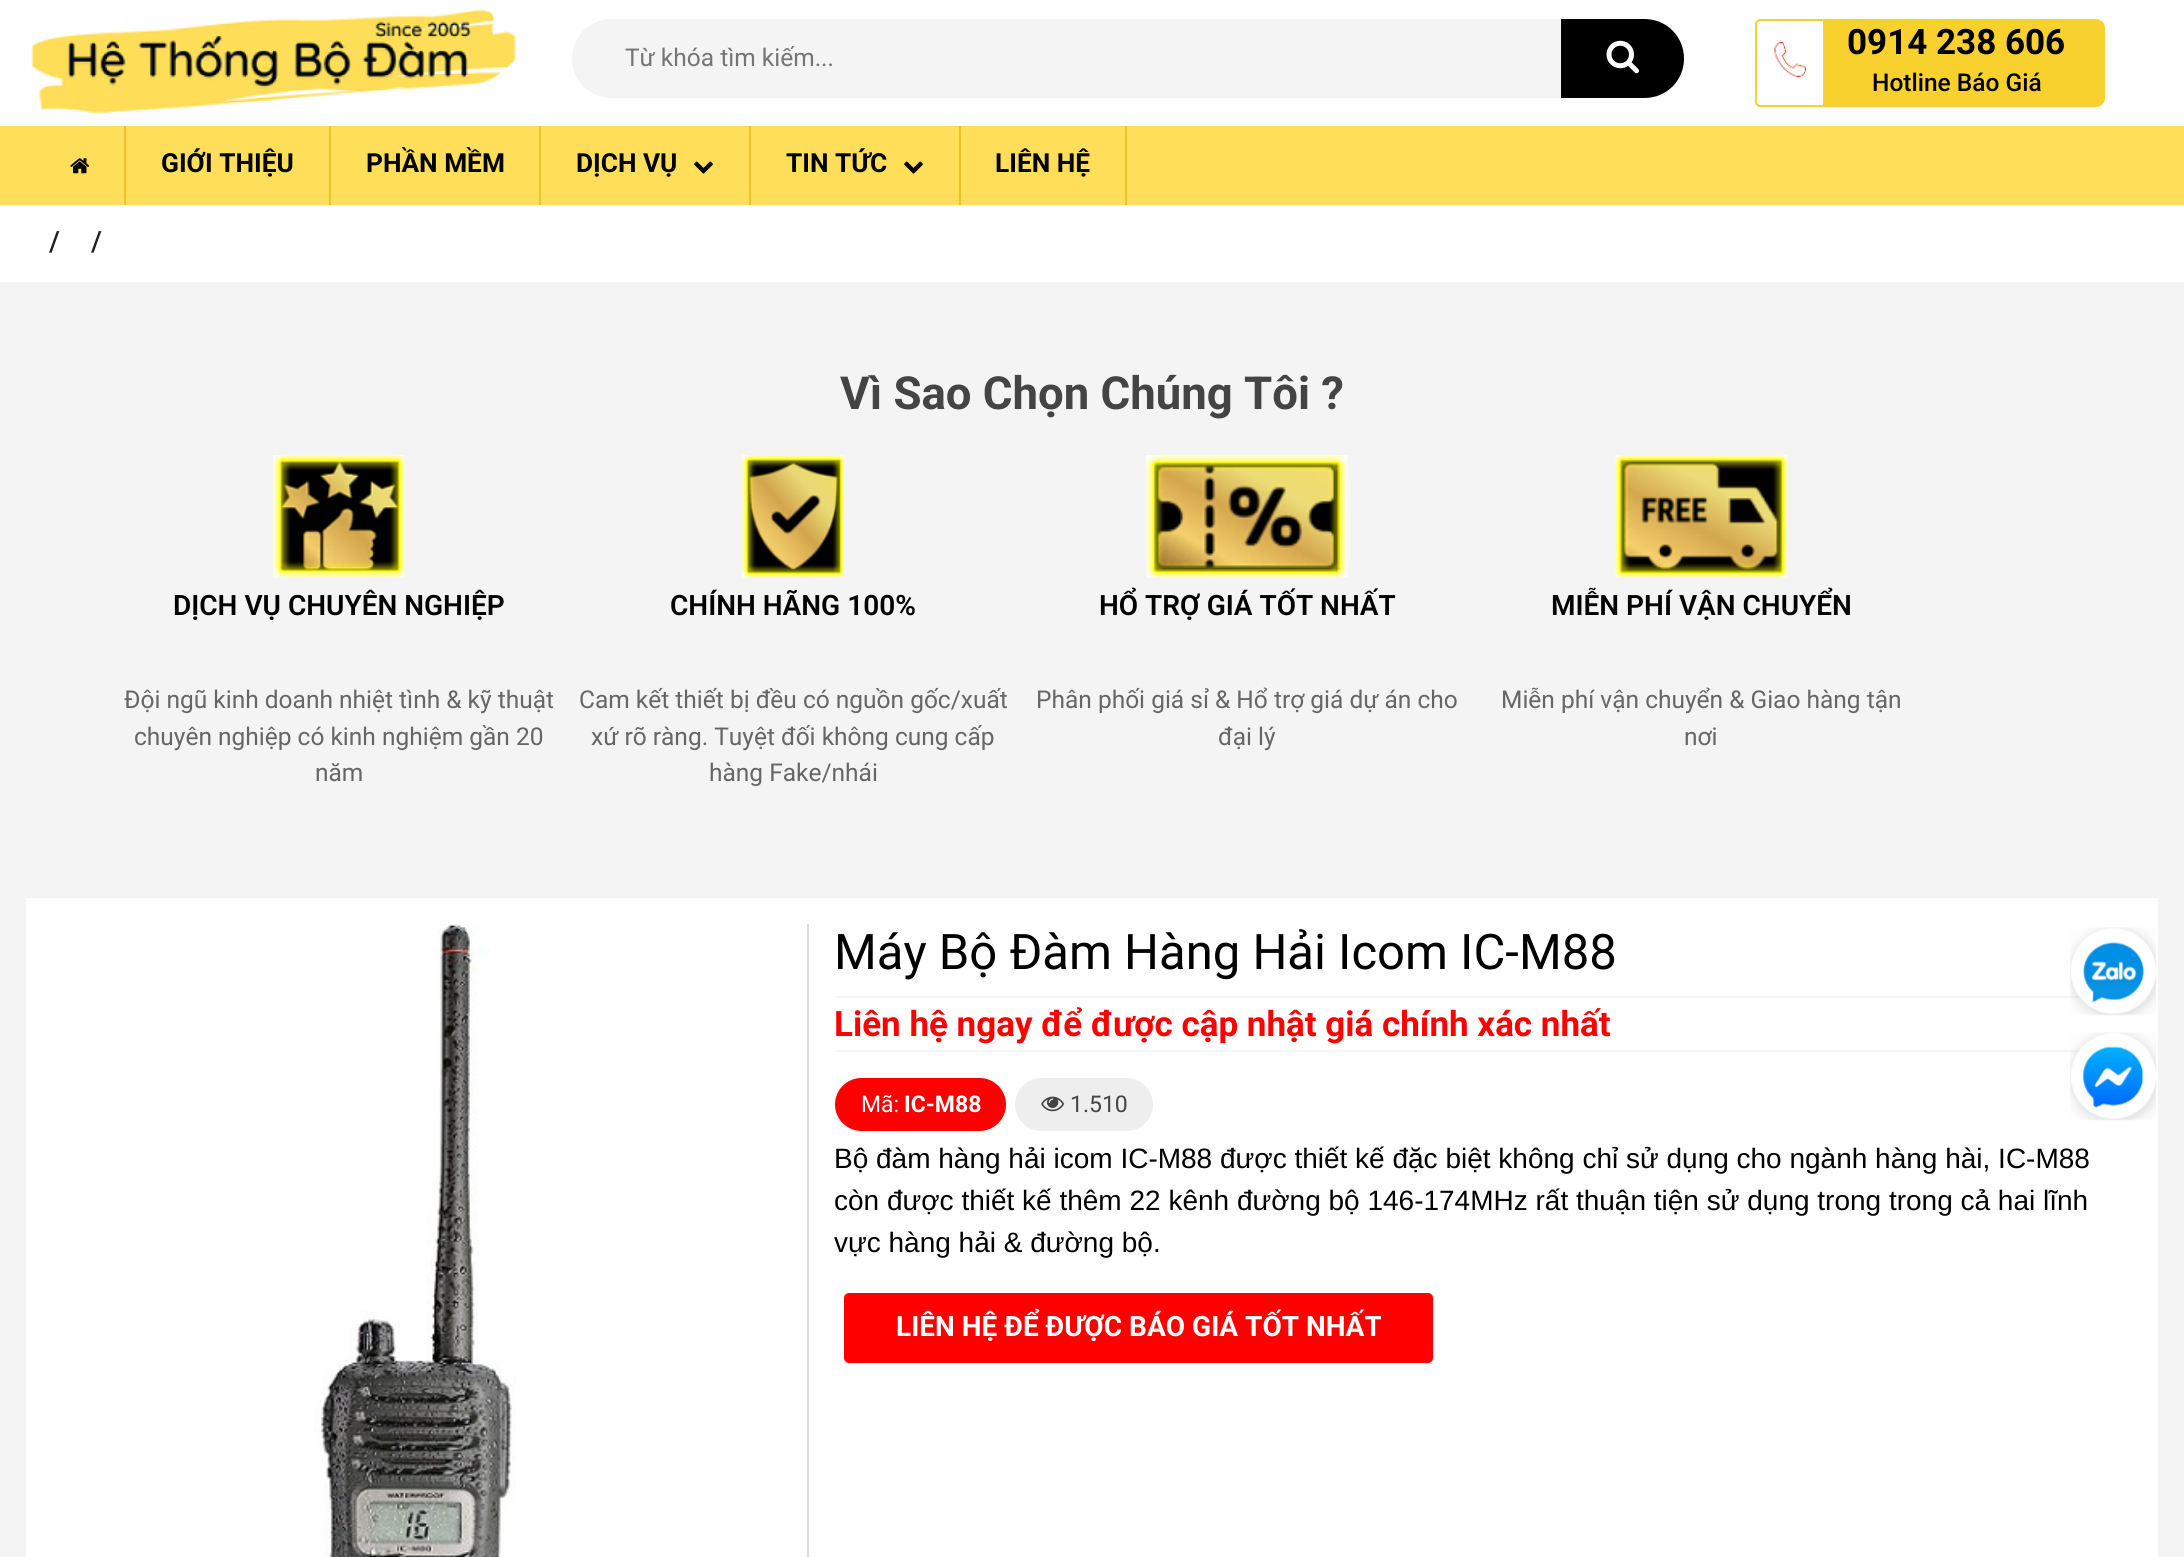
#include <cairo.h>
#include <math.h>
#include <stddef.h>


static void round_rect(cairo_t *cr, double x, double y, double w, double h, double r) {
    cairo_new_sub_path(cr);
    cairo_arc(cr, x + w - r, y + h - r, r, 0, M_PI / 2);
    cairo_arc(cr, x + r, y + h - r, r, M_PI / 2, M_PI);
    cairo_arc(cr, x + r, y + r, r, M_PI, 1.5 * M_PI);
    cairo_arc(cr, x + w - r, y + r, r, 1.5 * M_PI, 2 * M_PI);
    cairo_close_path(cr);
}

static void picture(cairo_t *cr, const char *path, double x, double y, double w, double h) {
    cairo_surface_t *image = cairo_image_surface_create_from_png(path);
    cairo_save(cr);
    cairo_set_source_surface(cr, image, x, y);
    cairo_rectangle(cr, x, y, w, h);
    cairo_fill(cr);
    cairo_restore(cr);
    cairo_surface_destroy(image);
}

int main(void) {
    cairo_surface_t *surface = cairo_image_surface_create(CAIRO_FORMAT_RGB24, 2184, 1557);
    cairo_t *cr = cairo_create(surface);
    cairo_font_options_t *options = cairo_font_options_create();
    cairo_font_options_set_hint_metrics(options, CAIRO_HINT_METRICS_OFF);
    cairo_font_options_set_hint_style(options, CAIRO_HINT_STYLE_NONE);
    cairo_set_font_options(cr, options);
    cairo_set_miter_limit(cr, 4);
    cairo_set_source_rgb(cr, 0.957, 0.957, 0.957);
    cairo_paint(cr);
    cairo_set_source_rgb(cr, 1, 1, 1);
    cairo_rectangle(cr, 0, 0, 2184, 126);
    cairo_fill(cr);
    picture(cr, "img1.png", 31, 9, 485, 104);
    cairo_set_source_rgb(cr, 0.957, 0.957, 0.957);
    round_rect(cr, 572, 19, 1110, 79, 39.5);
    cairo_fill(cr);
    cairo_select_font_face(cr, "Roboto", CAIRO_FONT_SLANT_NORMAL, CAIRO_FONT_WEIGHT_NORMAL);
    cairo_set_font_size(cr, 24.5);
    cairo_set_source_rgb(cr, 0.459, 0.459, 0.459);
    cairo_move_to(cr, 625, 66);
    cairo_show_text(cr, "Từ khóa tìm kiếm...");
    cairo_set_source_rgb(cr, 0, 0, 0);
    cairo_new_path(cr);
    cairo_move_to(cr, 1561, 19);
    cairo_line_to(cr, 1644.5, 19);
    cairo_curve_to(cr, 1666.5, 19, 1684, 36.5, 1684, 58.5);
    cairo_curve_to(cr, 1684, 80.5, 1666.5, 98, 1644.5, 98);
    cairo_line_to(cr, 1561, 98);
    cairo_close_path(cr);
    cairo_fill(cr);
    picture(cr, "img2.png", 1606, 40, 33, 34);
    cairo_set_source_rgb(cr, 0.976, 0.82, 0.18);
    round_rect(cr, 1755, 19, 350, 88, 9);
    cairo_fill(cr);
    cairo_set_source_rgb(cr, 1, 1, 1);
    cairo_new_path(cr);
    cairo_move_to(cr, 1760, 20);
    cairo_line_to(cr, 1824, 20);
    cairo_line_to(cr, 1824, 106);
    cairo_line_to(cr, 1760, 106);
    cairo_curve_to(cr, 1758, 106, 1756, 104, 1756, 102);
    cairo_line_to(cr, 1756, 24);
    cairo_curve_to(cr, 1756, 22, 1758, 20, 1760, 20);
    cairo_close_path(cr);
    cairo_fill_preserve(cr);
    cairo_set_source_rgb(cr, 0.976, 0.82, 0.18);
    cairo_stroke(cr);
    picture(cr, "img3.png", 1774, 42, 32, 35);
    cairo_select_font_face(cr, "Roboto", CAIRO_FONT_SLANT_NORMAL, CAIRO_FONT_WEIGHT_BOLD);
    cairo_set_font_size(cr, 35);
    cairo_set_source_rgb(cr, 0, 0, 0);
    cairo_move_to(cr, 1847, 54);
    cairo_show_text(cr, "0914 238 606");
    cairo_select_font_face(cr, "Roboto Medium", CAIRO_FONT_SLANT_NORMAL, CAIRO_FONT_WEIGHT_NORMAL);
    cairo_set_font_size(cr, 24.5);
    cairo_move_to(cr, 1872, 91);
    cairo_show_text(cr, "Hotline Báo Giá");
    cairo_set_source_rgb(cr, 1, 0.871, 0.349);
    cairo_rectangle(cr, 0, 126, 2184, 79);
    cairo_fill(cr);
    cairo_set_source_rgb(cr, 0.914, 0.769, 0.18);
    cairo_rectangle(cr, 124, 126, 2, 79);
    cairo_fill(cr);
    picture(cr, "img4.png", 70, 158, 20, 16);
    cairo_rectangle(cr, 329, 126, 2, 79);
    cairo_fill(cr);
    cairo_select_font_face(cr, "Roboto", CAIRO_FONT_SLANT_NORMAL, CAIRO_FONT_WEIGHT_BOLD);
    cairo_set_font_size(cr, 26.25);
    cairo_set_source_rgb(cr, 0, 0, 0);
    cairo_move_to(cr, 161, 172);
    cairo_show_text(cr, "GIỚI THIỆU");
    cairo_set_source_rgb(cr, 0.914, 0.769, 0.18);
    cairo_rectangle(cr, 539, 126, 2, 79);
    cairo_fill(cr);
    cairo_set_source_rgb(cr, 0, 0, 0);
    cairo_move_to(cr, 366, 172);
    cairo_show_text(cr, "PHẦN MỀM");
    cairo_set_source_rgb(cr, 0.914, 0.769, 0.18);
    cairo_rectangle(cr, 749, 126, 2, 79);
    cairo_fill(cr);
    cairo_set_source_rgb(cr, 0, 0, 0);
    cairo_move_to(cr, 576, 172);
    cairo_show_text(cr, "DỊCH VỤ");
    picture(cr, "img5.png", 694, 161, 19, 13);
    cairo_set_source_rgb(cr, 0.914, 0.769, 0.18);
    cairo_rectangle(cr, 959, 126, 2, 79);
    cairo_fill(cr);
    cairo_set_source_rgb(cr, 0, 0, 0);
    cairo_move_to(cr, 786, 172);
    cairo_show_text(cr, "TIN TỨC");
    picture(cr, "img5.png", 904, 161, 19, 13);
    cairo_set_source_rgb(cr, 0.914, 0.769, 0.18);
    cairo_rectangle(cr, 1125, 126, 2, 79);
    cairo_fill(cr);
    cairo_set_source_rgb(cr, 0, 0, 0);
    cairo_move_to(cr, 995, 172);
    cairo_show_text(cr, "LIÊN HỆ");
    cairo_set_source_rgb(cr, 1, 1, 1);
    cairo_rectangle(cr, 0, 205, 2184, 77);
    cairo_fill(cr);
    cairo_select_font_face(cr, "Roboto Medium", CAIRO_FONT_SLANT_NORMAL, CAIRO_FONT_WEIGHT_NORMAL);
    cairo_set_font_size(cr, 28);
    cairo_set_source_rgb(cr, 0.133, 0.133, 0.133);
    cairo_move_to(cr, 49, 251);
    cairo_show_text(cr, "/");
    cairo_move_to(cr, 91, 251);
    cairo_show_text(cr, "/");
    cairo_select_font_face(cr, "Roboto", CAIRO_FONT_SLANT_NORMAL, CAIRO_FONT_WEIGHT_BOLD);
    cairo_set_font_size(cr, 45.5);
    cairo_set_source_rgb(cr, 0.267, 0.267, 0.267);
    cairo_move_to(cr, 840, 409);
    cairo_show_text(cr, "Vì Sao Chọn Chúng Tôi ?");
    picture(cr, "img6.png", 273, 455, 132, 123);
    cairo_select_font_face(cr, "Roboto SemiBold", CAIRO_FONT_SLANT_NORMAL, CAIRO_FONT_WEIGHT_NORMAL);
    cairo_set_font_size(cr, 28);
    cairo_set_source_rgb(cr, 0, 0, 0);
    cairo_move_to(cr, 173, 615);
    cairo_show_text(cr, "DỊCH VỤ CHUYÊN NGHIỆP");
    cairo_select_font_face(cr, "Roboto", CAIRO_FONT_SLANT_NORMAL, CAIRO_FONT_WEIGHT_NORMAL);
    cairo_set_font_size(cr, 24.5);
    cairo_set_source_rgb(cr, 0.4, 0.4, 0.4);
    cairo_move_to(cr, 124, 708);
    cairo_show_text(cr, "Đội ngũ kinh doanh nhiệt tình & kỹ thuật");
    cairo_move_to(cr, 134, 745);
    cairo_show_text(cr, "chuyên nghiệp có kinh nghiệm gần 20");
    cairo_move_to(cr, 315, 781);
    cairo_show_text(cr, "năm");
    picture(cr, "img7.png", 742, 455, 102, 123);
    cairo_select_font_face(cr, "Roboto SemiBold", CAIRO_FONT_SLANT_NORMAL, CAIRO_FONT_WEIGHT_NORMAL);
    cairo_set_font_size(cr, 28);
    cairo_set_source_rgb(cr, 0, 0, 0);
    cairo_move_to(cr, 670, 615);
    cairo_show_text(cr, "CHÍNH HÃNG 100%");
    cairo_select_font_face(cr, "Roboto", CAIRO_FONT_SLANT_NORMAL, CAIRO_FONT_WEIGHT_NORMAL);
    cairo_set_font_size(cr, 24.5);
    cairo_set_source_rgb(cr, 0.4, 0.4, 0.4);
    cairo_move_to(cr, 579, 708);
    cairo_show_text(cr, "Cam kết thiết bị đều có nguồn gốc/xuất");
    cairo_move_to(cr, 591, 745);
    cairo_show_text(cr, "xứ rõ ràng. Tuyệt đối không cung cấp");
    cairo_move_to(cr, 709, 781);
    cairo_show_text(cr, "hàng Fake/nhái");
    picture(cr, "img8.png", 1146, 455, 202, 123);
    cairo_select_font_face(cr, "Roboto SemiBold", CAIRO_FONT_SLANT_NORMAL, CAIRO_FONT_WEIGHT_NORMAL);
    cairo_set_font_size(cr, 28);
    cairo_set_source_rgb(cr, 0, 0, 0);
    cairo_move_to(cr, 1099, 615);
    cairo_show_text(cr, "HỔ TRỢ GIÁ TỐT NHẤT");
    cairo_select_font_face(cr, "Roboto", CAIRO_FONT_SLANT_NORMAL, CAIRO_FONT_WEIGHT_NORMAL);
    cairo_set_font_size(cr, 24.5);
    cairo_set_source_rgb(cr, 0.4, 0.4, 0.4);
    cairo_move_to(cr, 1036, 708);
    cairo_show_text(cr, "Phân phối giá sỉ & Hổ trợ giá dự án cho");
    cairo_move_to(cr, 1218, 745);
    cairo_show_text(cr, "đại lý");
    picture(cr, "img9.png", 1615, 455, 172, 123);
    cairo_select_font_face(cr, "Roboto SemiBold", CAIRO_FONT_SLANT_NORMAL, CAIRO_FONT_WEIGHT_NORMAL);
    cairo_set_font_size(cr, 28);
    cairo_set_source_rgb(cr, 0, 0, 0);
    cairo_move_to(cr, 1551, 615);
    cairo_show_text(cr, "MIỄN PHÍ VẬN CHUYỂN");
    cairo_select_font_face(cr, "Roboto", CAIRO_FONT_SLANT_NORMAL, CAIRO_FONT_WEIGHT_NORMAL);
    cairo_set_font_size(cr, 24.5);
    cairo_set_source_rgb(cr, 0.4, 0.4, 0.4);
    cairo_move_to(cr, 1501, 708);
    cairo_show_text(cr, "Miễn phí vận chuyển & Giao hàng tận");
    cairo_move_to(cr, 1684, 745);
    cairo_show_text(cr, "nơi");
    cairo_set_source_rgb(cr, 1, 1, 1);
    cairo_rectangle(cr, 26, 898, 2132, 659);
    cairo_fill(cr);
    picture(cr, "img10.png", 314, 924, 202, 633);
    cairo_set_source_rgb(cr, 0.867, 0.867, 0.867);
    cairo_rectangle(cr, 807, 924, 2, 633);
    cairo_fill(cr);
    cairo_set_font_size(cr, 49);
    cairo_set_source_rgb(cr, 0, 0, 0);
    cairo_move_to(cr, 834, 969);
    cairo_show_text(cr, "Máy Bộ Đàm Hàng Hải Icom IC-M88");
    cairo_set_source_rgb(cr, 0.957, 0.957, 0.957);
    cairo_rectangle(cr, 835, 996, 1247, 2);
    cairo_fill(cr);
    cairo_rectangle(cr, 835, 1050, 1246, 2);
    cairo_fill(cr);
    cairo_select_font_face(cr, "Roboto", CAIRO_FONT_SLANT_NORMAL, CAIRO_FONT_WEIGHT_BOLD);
    cairo_set_font_size(cr, 35);
    cairo_set_source_rgb(cr, 1, 0, 0);
    cairo_move_to(cr, 834, 1036);
    cairo_show_text(cr, "Liên hệ ngay để được cập nhật giá chính xác nhất");
    round_rect(cr, 835, 1078, 171, 53, 26.5);
    cairo_fill(cr);
    cairo_select_font_face(cr, "Roboto", CAIRO_FONT_SLANT_NORMAL, CAIRO_FONT_WEIGHT_NORMAL);
    cairo_set_font_size(cr, 23);
    cairo_set_source_rgb(cr, 1, 1, 1);
    cairo_move_to(cr, 861, 1112);
    cairo_show_text(cr, "Mã:");
    cairo_select_font_face(cr, "Roboto", CAIRO_FONT_SLANT_NORMAL, CAIRO_FONT_WEIGHT_BOLD);
    cairo_move_to(cr, 904, 1112);
    cairo_show_text(cr, "IC-M88");
    cairo_set_source_rgb(cr, 0.933, 0.933, 0.933);
    round_rect(cr, 1015, 1078, 138, 53, 26.5);
    cairo_fill(cr);
    picture(cr, "img11.png", 1041, 1096, 23, 16);
    cairo_select_font_face(cr, "Roboto", CAIRO_FONT_SLANT_NORMAL, CAIRO_FONT_WEIGHT_NORMAL);
    cairo_set_source_rgb(cr, 0.267, 0.267, 0.267);
    cairo_move_to(cr, 1070, 1112);
    cairo_show_text(cr, "1.510");
    cairo_select_font_face(cr, "Liberation Sans", CAIRO_FONT_SLANT_NORMAL, CAIRO_FONT_WEIGHT_NORMAL);
    cairo_set_font_size(cr, 28);
    cairo_set_source_rgb(cr, 0, 0, 0);
    cairo_move_to(cr, 834, 1168);
    cairo_show_text(cr, "Bộ đàm hàng hải icom IC-M88 được thiết kế đặc biệt không chỉ sử dụng cho ngành hàng hài, IC-M88");
    cairo_move_to(cr, 834, 1210);
    cairo_show_text(cr, "còn được thiết kế thêm 22 kênh đường bộ 146-174MHz rất thuận tiện sử dụng trong trong cả hai lĩnh");
    cairo_move_to(cr, 834, 1252);
    cairo_show_text(cr, "vực hàng hải & đường bộ.");
    cairo_set_source_rgb(cr, 1, 0, 0);
    round_rect(cr, 844, 1293, 589, 70, 5);
    cairo_fill(cr);
    cairo_select_font_face(cr, "Roboto", CAIRO_FONT_SLANT_NORMAL, CAIRO_FONT_WEIGHT_BOLD);
    cairo_set_source_rgb(cr, 1, 1, 1);
    cairo_move_to(cr, 896, 1336);
    cairo_show_text(cr, "LIÊN HỆ ĐỂ ĐƯỢC BÁO GIÁ TỐT NHẤT");
    picture(cr, "img12.png", 2070, 927, 87, 89);
    picture(cr, "img13.png", 2070, 1032, 87, 89);
    cairo_surface_write_to_png(surface, "page.png");
    cairo_font_options_destroy(options);
    cairo_destroy(cr);
    cairo_surface_destroy(surface);
    return 0;
}
